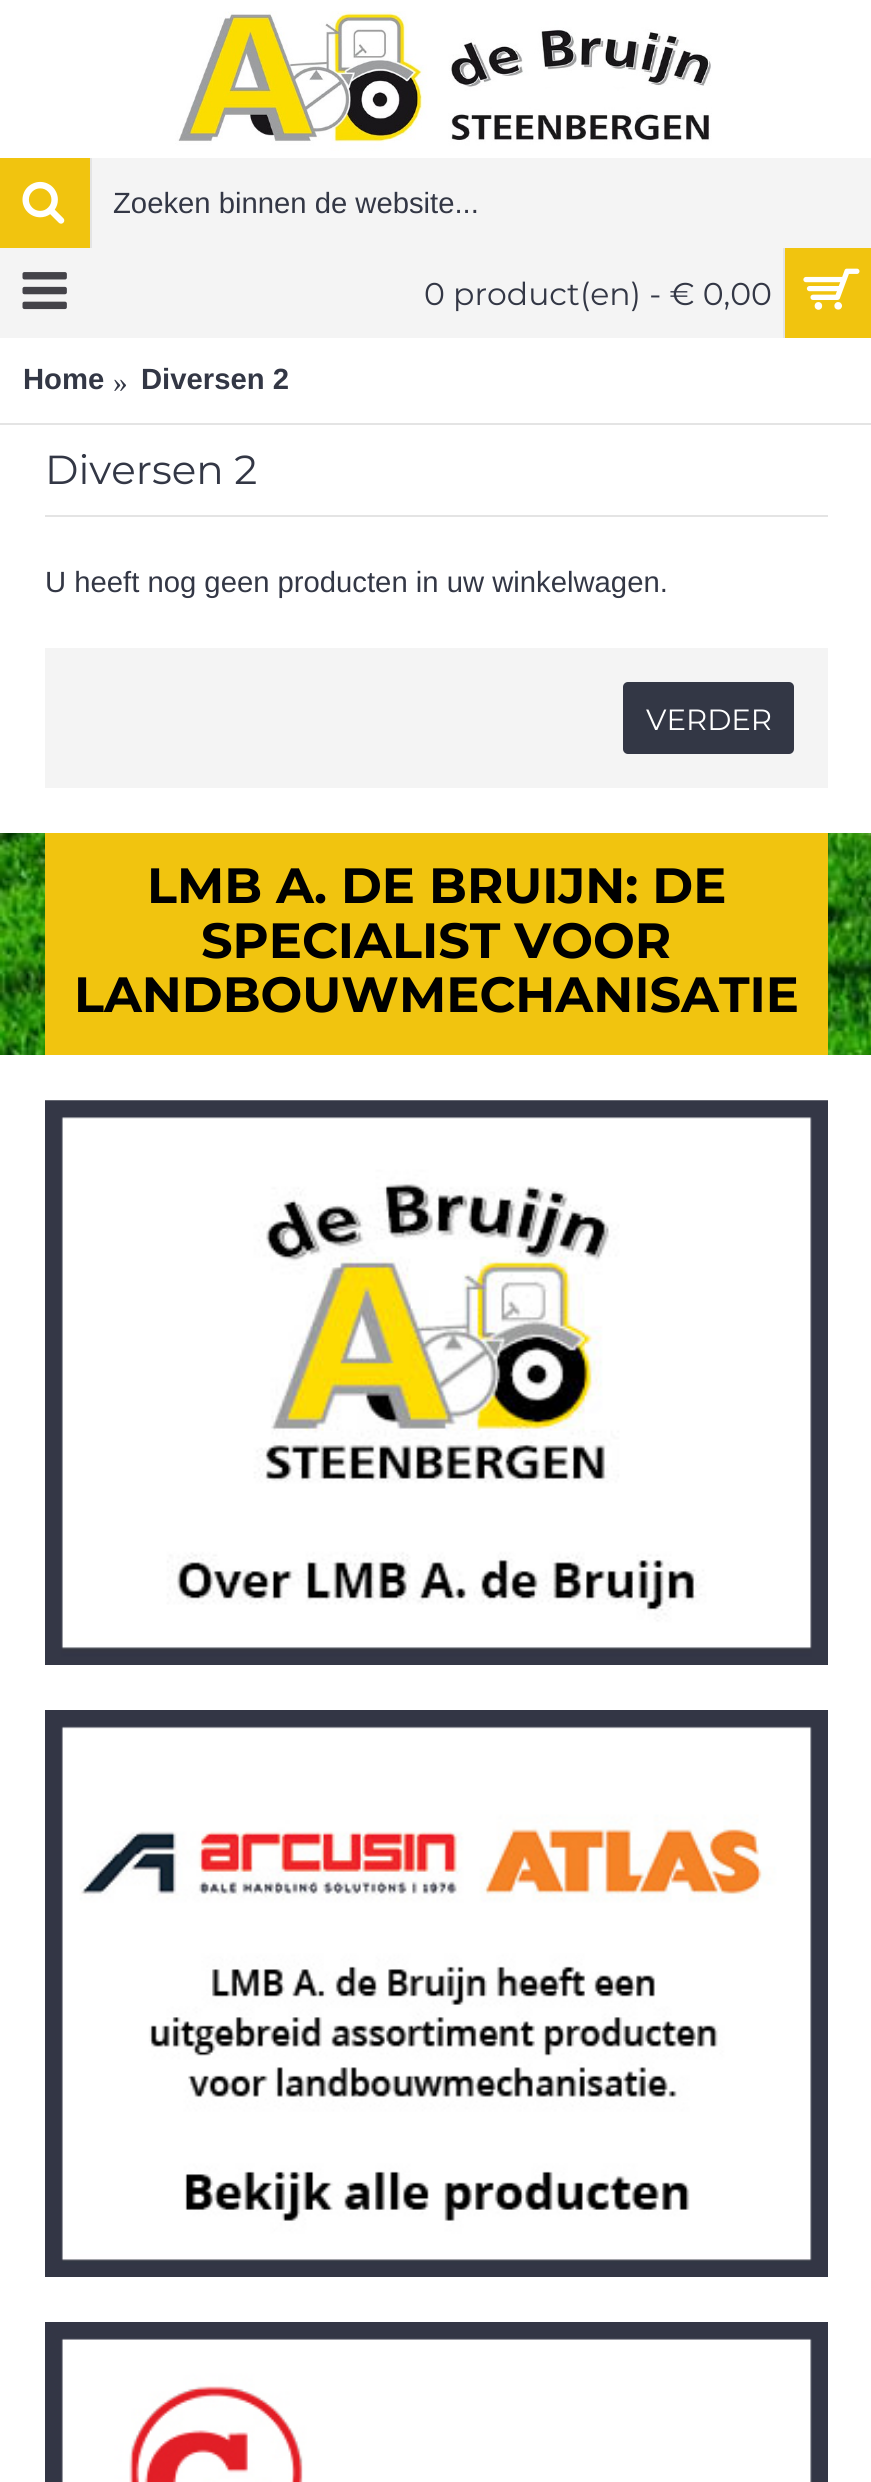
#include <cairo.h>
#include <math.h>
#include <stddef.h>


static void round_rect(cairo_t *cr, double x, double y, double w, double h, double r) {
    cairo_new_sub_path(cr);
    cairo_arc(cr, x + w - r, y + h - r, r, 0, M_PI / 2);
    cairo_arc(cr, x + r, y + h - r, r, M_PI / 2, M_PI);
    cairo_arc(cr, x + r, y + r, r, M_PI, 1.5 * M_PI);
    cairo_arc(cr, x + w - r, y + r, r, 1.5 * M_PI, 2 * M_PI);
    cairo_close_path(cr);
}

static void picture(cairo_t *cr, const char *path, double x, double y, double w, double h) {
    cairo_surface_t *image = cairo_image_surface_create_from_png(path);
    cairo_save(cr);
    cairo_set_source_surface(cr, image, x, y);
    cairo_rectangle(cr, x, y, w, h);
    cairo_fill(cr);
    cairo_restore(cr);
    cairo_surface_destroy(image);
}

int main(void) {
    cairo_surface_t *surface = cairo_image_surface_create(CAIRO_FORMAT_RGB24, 871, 2482);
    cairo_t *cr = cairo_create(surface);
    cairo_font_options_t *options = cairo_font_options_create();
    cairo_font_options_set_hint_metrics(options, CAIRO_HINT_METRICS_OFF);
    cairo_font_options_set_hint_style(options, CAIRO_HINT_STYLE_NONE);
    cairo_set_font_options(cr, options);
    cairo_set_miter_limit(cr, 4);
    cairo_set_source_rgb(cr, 1, 1, 1);
    cairo_paint(cr);
    picture(cr, "img1.png", 0, 833, 871, 222);
    cairo_set_source_rgb(cr, 0.957, 0.957, 0.957);
    cairo_rectangle(cr, 0, 248, 783, 90);
    cairo_fill(cr);
    picture(cr, "img2.png", 22, 272, 45, 38);
    picture(cr, "img3.png", 175, 11, 537, 140);
    cairo_set_source_rgb(cr, 0.945, 0.769, 0.059);
    cairo_rectangle(cr, 0, 158, 90, 90);
    cairo_fill(cr);
    cairo_set_source_rgb(cr, 0.894, 0.894, 0.894);
    cairo_rectangle(cr, 90, 158, 2, 90);
    cairo_fill(cr);
    picture(cr, "img4.png", 22, 181, 43, 43);
    cairo_set_source_rgb(cr, 0.957, 0.957, 0.957);
    cairo_rectangle(cr, 92, 158, 779, 90);
    cairo_fill(cr);
    cairo_select_font_face(cr, "Liberation Sans", CAIRO_FONT_SLANT_NORMAL, CAIRO_FONT_WEIGHT_NORMAL);
    cairo_set_font_size(cr, 29.25);
    cairo_set_source_rgb(cr, 0.2, 0.216, 0.271);
    cairo_move_to(cr, 113, 213);
    cairo_show_text(cr, "Zoeken binnen de website...");
    cairo_select_font_face(cr, "Montserrat", CAIRO_FONT_SLANT_NORMAL, CAIRO_FONT_WEIGHT_NORMAL);
    cairo_set_font_size(cr, 31.5);
    cairo_move_to(cr, 424, 305);
    cairo_show_text(cr, "0 product(en) - € 0,00");
    cairo_set_source_rgb(cr, 0.945, 0.769, 0.059);
    cairo_rectangle(cr, 785, 248, 86, 90);
    cairo_fill(cr);
    cairo_set_source_rgb(cr, 0.894, 0.894, 0.894);
    cairo_rectangle(cr, 783, 248, 2, 90);
    cairo_fill(cr);
    picture(cr, "img5.png", 803, 268, 57, 42);
    cairo_rectangle(cr, 0, 423, 871, 2);
    cairo_fill(cr);
    cairo_select_font_face(cr, "Liberation Sans", CAIRO_FONT_SLANT_NORMAL, CAIRO_FONT_WEIGHT_BOLD);
    cairo_set_font_size(cr, 29.25);
    cairo_set_source_rgb(cr, 0.2, 0.216, 0.271);
    cairo_move_to(cr, 23, 389);
    cairo_show_text(cr, "Home");
    cairo_select_font_face(cr, "Liberation Serif", CAIRO_FONT_SLANT_NORMAL, CAIRO_FONT_WEIGHT_NORMAL);
    cairo_move_to(cr, 113, 392);
    cairo_show_text(cr, "»");
    cairo_select_font_face(cr, "Liberation Sans", CAIRO_FONT_SLANT_NORMAL, CAIRO_FONT_WEIGHT_BOLD);
    cairo_move_to(cr, 141, 389);
    cairo_show_text(cr, "Diversen 2");
    cairo_set_source_rgb(cr, 0.894, 0.894, 0.894);
    cairo_rectangle(cr, 45, 515, 783, 2);
    cairo_fill(cr);
    cairo_select_font_face(cr, "Montserrat", CAIRO_FONT_SLANT_NORMAL, CAIRO_FONT_WEIGHT_NORMAL);
    cairo_set_font_size(cr, 40.5);
    cairo_set_source_rgb(cr, 0.2, 0.216, 0.271);
    cairo_move_to(cr, 45, 484);
    cairo_show_text(cr, "Diversen 2");
    cairo_select_font_face(cr, "Liberation Sans", CAIRO_FONT_SLANT_NORMAL, CAIRO_FONT_WEIGHT_NORMAL);
    cairo_set_font_size(cr, 29.25);
    cairo_move_to(cr, 45, 592);
    cairo_show_text(cr, "U heeft nog geen producten in uw winkelwagen.");
    cairo_set_source_rgb(cr, 0.957, 0.957, 0.957);
    cairo_rectangle(cr, 45, 648, 783, 140);
    cairo_fill(cr);
    cairo_set_source_rgb(cr, 0.2, 0.216, 0.271);
    round_rect(cr, 623, 682, 171, 72, 5);
    cairo_fill(cr);
    cairo_select_font_face(cr, "Montserrat", CAIRO_FONT_SLANT_NORMAL, CAIRO_FONT_WEIGHT_NORMAL);
    cairo_set_source_rgb(cr, 1, 1, 1);
    cairo_move_to(cr, 646, 730);
    cairo_show_text(cr, "VERDER");
    cairo_set_source_rgb(cr, 0.945, 0.769, 0.059);
    cairo_rectangle(cr, 45, 833, 783, 222);
    cairo_fill(cr);
    cairo_select_font_face(cr, "Montserrat", CAIRO_FONT_SLANT_NORMAL, CAIRO_FONT_WEIGHT_BOLD);
    cairo_set_font_size(cr, 49.5);
    cairo_set_source_rgb(cr, 0, 0, 0);
    cairo_move_to(cr, 147, 903);
    cairo_show_text(cr, "LMB A. DE BRUIJN: DE");
    cairo_move_to(cr, 201, 958);
    cairo_show_text(cr, "SPECIALIST VOOR");
    cairo_move_to(cr, 74, 1012);
    cairo_show_text(cr, "LANDBOUWMECHANISATIE");
    picture(cr, "img6.png", 45, 1100, 783, 565);
    picture(cr, "img7.png", 45, 1710, 783, 567);
    picture(cr, "img8.png", 45, 2322, 783, 160);
    cairo_surface_write_to_png(surface, "page.png");
    cairo_font_options_destroy(options);
    cairo_destroy(cr);
    cairo_surface_destroy(surface);
    return 0;
}
